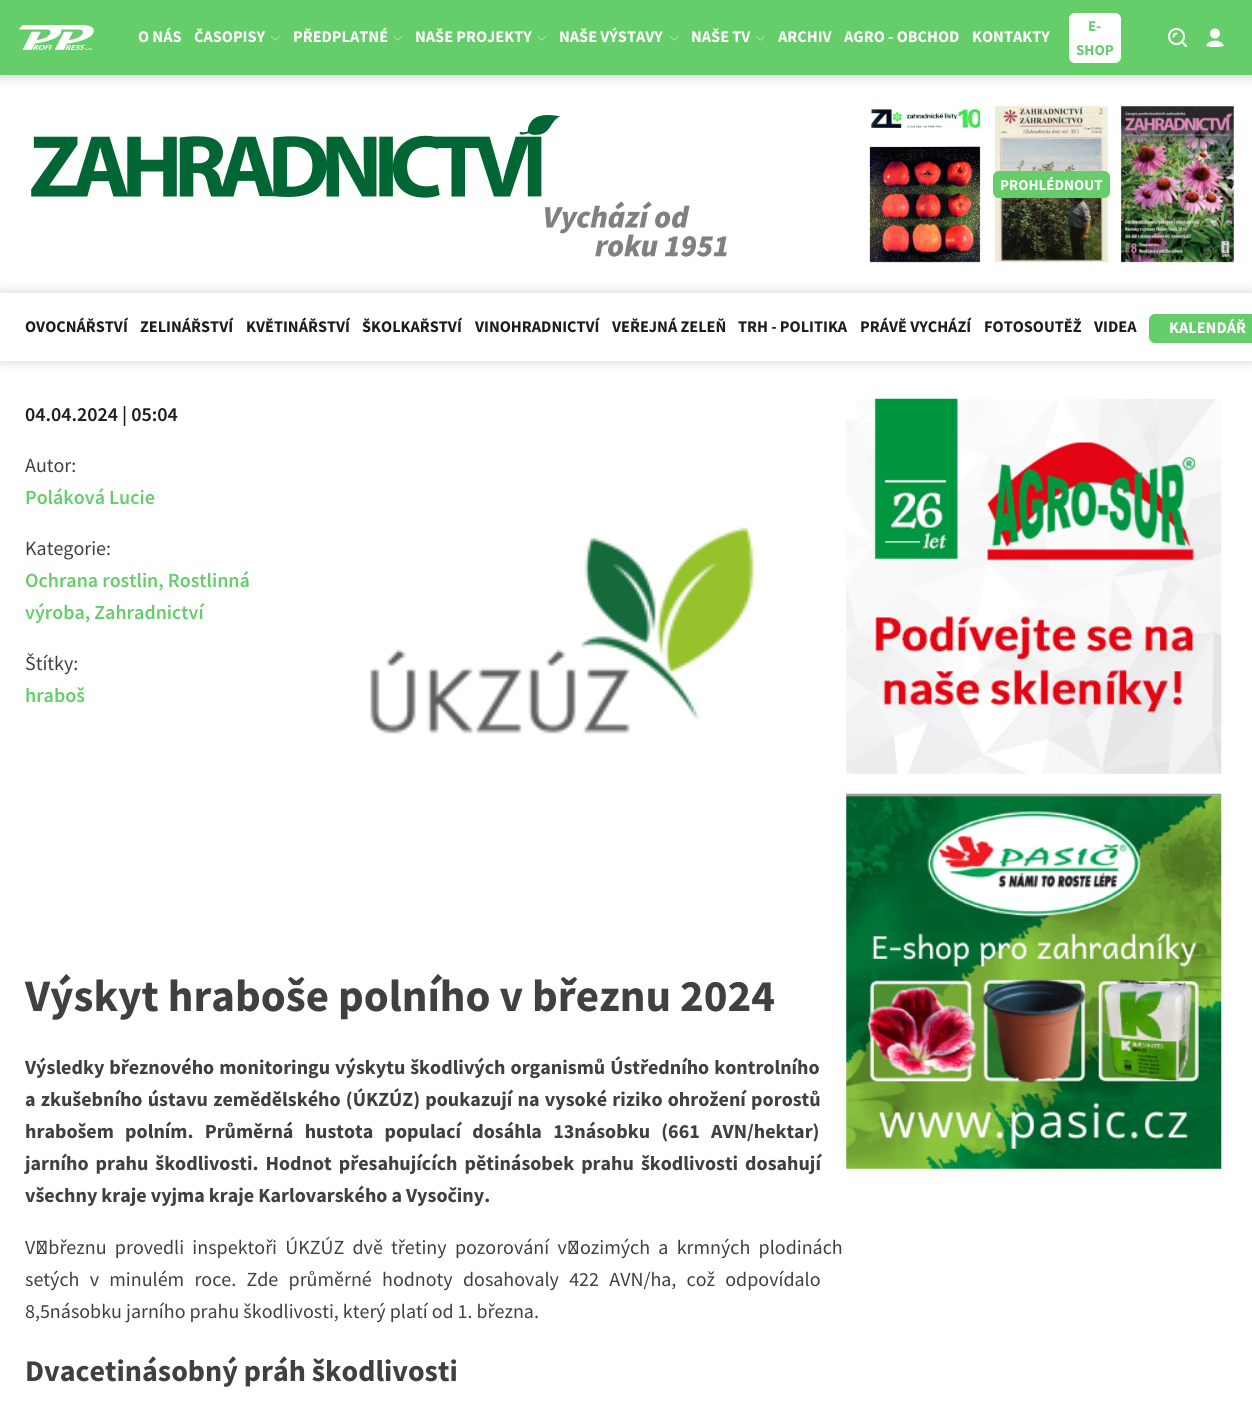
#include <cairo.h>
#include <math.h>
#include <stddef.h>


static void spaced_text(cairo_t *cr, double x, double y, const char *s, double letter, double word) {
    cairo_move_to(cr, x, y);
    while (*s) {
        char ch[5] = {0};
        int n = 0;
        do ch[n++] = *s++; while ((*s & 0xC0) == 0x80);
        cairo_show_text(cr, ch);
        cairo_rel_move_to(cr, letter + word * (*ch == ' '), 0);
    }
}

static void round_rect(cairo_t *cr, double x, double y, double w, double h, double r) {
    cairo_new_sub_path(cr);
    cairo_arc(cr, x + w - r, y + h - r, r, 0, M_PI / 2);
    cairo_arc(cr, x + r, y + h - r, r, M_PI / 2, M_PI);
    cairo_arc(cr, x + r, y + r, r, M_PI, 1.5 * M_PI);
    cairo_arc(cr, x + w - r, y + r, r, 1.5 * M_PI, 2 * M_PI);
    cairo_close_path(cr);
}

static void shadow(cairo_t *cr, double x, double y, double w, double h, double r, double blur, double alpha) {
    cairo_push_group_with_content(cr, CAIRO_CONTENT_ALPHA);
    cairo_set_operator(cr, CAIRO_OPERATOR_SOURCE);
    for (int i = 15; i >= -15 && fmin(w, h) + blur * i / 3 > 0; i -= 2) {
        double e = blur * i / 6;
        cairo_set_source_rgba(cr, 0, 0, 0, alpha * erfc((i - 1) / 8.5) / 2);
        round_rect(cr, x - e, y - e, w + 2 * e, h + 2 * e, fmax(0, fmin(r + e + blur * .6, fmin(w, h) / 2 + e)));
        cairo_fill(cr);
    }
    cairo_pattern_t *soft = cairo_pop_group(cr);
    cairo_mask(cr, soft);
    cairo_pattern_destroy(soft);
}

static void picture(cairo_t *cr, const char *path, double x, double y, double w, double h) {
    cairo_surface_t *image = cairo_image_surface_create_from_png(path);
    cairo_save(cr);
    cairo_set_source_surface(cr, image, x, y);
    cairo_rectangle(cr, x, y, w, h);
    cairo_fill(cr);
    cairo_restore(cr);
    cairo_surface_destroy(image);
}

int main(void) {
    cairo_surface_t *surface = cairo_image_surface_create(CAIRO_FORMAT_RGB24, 1252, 1404);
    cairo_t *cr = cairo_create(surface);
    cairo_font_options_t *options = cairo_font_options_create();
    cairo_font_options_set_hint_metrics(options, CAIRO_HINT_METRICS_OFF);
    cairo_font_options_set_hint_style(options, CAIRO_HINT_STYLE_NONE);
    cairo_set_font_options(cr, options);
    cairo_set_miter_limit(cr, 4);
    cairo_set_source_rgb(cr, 1, 1, 1);
    cairo_paint(cr);
    cairo_set_source_rgb(cr, 0, 0, 0);
    shadow(cr, 0, 0, 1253, 75, 0, 6, 0.25);
    cairo_set_source_rgb(cr, 0.396, 0.804, 0.412);
    cairo_rectangle(cr, 0, 0, 1252, 75);
    cairo_fill(cr);
    picture(cr, "img1.png", 19, 25, 75, 25);
    cairo_select_font_face(cr, "Source Sans Pro", CAIRO_FONT_SLANT_NORMAL, CAIRO_FONT_WEIGHT_BOLD);
    cairo_set_font_size(cr, 16.25);
    cairo_set_source_rgb(cr, 1, 1, 1);
    cairo_move_to(cr, 138, 42);
    cairo_show_text(cr, "O NÁS");
    cairo_move_to(cr, 194, 42);
    cairo_show_text(cr, "ČASOPISY");
    picture(cr, "img2.png", 271, 36, 9, 5);
    cairo_move_to(cr, 293, 42);
    cairo_show_text(cr, "PŘEDPLATNÉ");
    picture(cr, "img3.png", 394, 36, 8, 5);
    cairo_move_to(cr, 415, 42);
    cairo_show_text(cr, "NAŠE PROJEKTY");
    picture(cr, "img4.png", 538, 36, 8, 5);
    cairo_move_to(cr, 559, 42);
    cairo_show_text(cr, "NAŠE VÝSTAVY");
    picture(cr, "img5.png", 670, 36, 9, 5);
    cairo_move_to(cr, 691, 42);
    cairo_show_text(cr, "NAŠE TV");
    picture(cr, "img2.png", 756, 36, 9, 5);
    cairo_move_to(cr, 778, 42);
    cairo_show_text(cr, "ARCHIV");
    cairo_move_to(cr, 844, 42);
    cairo_show_text(cr, "AGRO - OBCHOD");
    cairo_move_to(cr, 972, 42);
    cairo_show_text(cr, "KONTAKTY");
    round_rect(cr, 1069.5, 13.5, 51, 49, 5.5);
    cairo_fill_preserve(cr);
    cairo_set_line_width(cr, 1);
    cairo_stroke(cr);
    cairo_set_font_size(cr, 15);
    cairo_set_source_rgb(cr, 0.396, 0.804, 0.412);
    cairo_move_to(cr, 1088, 31);
    cairo_show_text(cr, "E-");
    cairo_move_to(cr, 1076, 55);
    cairo_show_text(cr, "SHOP");
    cairo_new_path(cr);
    cairo_arc(cr, 1176.5, 36.5, 7.5, 0, 2 * M_PI);
    cairo_set_source_rgb(cr, 1, 1, 1);
    cairo_set_line_width(cr, 2.1);
    cairo_stroke(cr);
    cairo_new_path(cr);
    cairo_move_to(cr, 1176.5, 33.5);
    cairo_curve_to(cr, 1175, 33.5, 1173.5, 35, 1173.5, 36.5);
    cairo_move_to(cr, 1186, 46);
    cairo_line_to(cr, 1182.5, 42.5);
    cairo_set_line_cap(cr, CAIRO_LINE_CAP_ROUND);
    cairo_stroke(cr);
    picture(cr, "img6.png", 1206, 28, 18, 20);
    picture(cr, "img7.png", 31, 115, 696, 142);
    picture(cr, "img8.png", 869, 106, 365, 157);
    cairo_set_source_rgb(cr, 0.396, 0.804, 0.412);
    round_rect(cr, 993, 171, 117, 27, 6);
    cairo_fill(cr);
    cairo_set_source_rgb(cr, 1, 1, 1);
    cairo_move_to(cr, 1000, 190);
    cairo_show_text(cr, "PROHLÉDNOUT");
    cairo_save(cr);
    cairo_set_fill_rule(cr, CAIRO_FILL_RULE_EVEN_ODD);
    cairo_new_path(cr);
    cairo_move_to(cr, 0, 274);
    cairo_line_to(cr, 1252, 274);
    cairo_line_to(cr, 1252, 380);
    cairo_line_to(cr, 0, 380);
    cairo_close_path(cr);
    cairo_move_to(cr, 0, 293);
    cairo_line_to(cr, 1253, 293);
    cairo_line_to(cr, 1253, 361);
    cairo_line_to(cr, 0, 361);
    cairo_close_path(cr);
    cairo_clip(cr);
    cairo_set_source_rgb(cr, 0.114, 0.114, 0.106);
    shadow(cr, 0, 293, 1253, 68, 0, 6, 0.2);
    cairo_restore(cr);
    cairo_set_font_size(cr, 16.25);
    cairo_set_source_rgb(cr, 0.114, 0.114, 0.106);
    cairo_move_to(cr, 25, 332);
    cairo_show_text(cr, "OVOCNÁŘSTVÍ");
    cairo_move_to(cr, 140, 332);
    cairo_show_text(cr, "ZELINÁŘSTVÍ");
    cairo_move_to(cr, 246, 332);
    cairo_show_text(cr, "KVĚTINÁŘSTVÍ");
    cairo_move_to(cr, 362, 332);
    cairo_show_text(cr, "ŠKOLKAŘSTVÍ");
    cairo_move_to(cr, 475, 332);
    cairo_show_text(cr, "VINOHRADNICTVÍ");
    cairo_move_to(cr, 612, 332);
    cairo_show_text(cr, "VEŘEJNÁ ZELEŇ");
    cairo_move_to(cr, 738, 332);
    cairo_show_text(cr, "TRH - POLITIKA");
    cairo_move_to(cr, 860, 332);
    cairo_show_text(cr, "PRÁVĚ VYCHÁZÍ");
    cairo_move_to(cr, 984, 332);
    cairo_show_text(cr, "FOTOSOUTĚŽ");
    cairo_move_to(cr, 1094, 332);
    cairo_show_text(cr, "VIDEA");
    cairo_set_source_rgb(cr, 0.396, 0.804, 0.412);
    round_rect(cr, 1149, 314, 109, 29, 6);
    cairo_fill(cr);
    cairo_set_source_rgb(cr, 1, 1, 1);
    cairo_move_to(cr, 1169, 333);
    cairo_show_text(cr, "KALENDÁŘ");
    cairo_select_font_face(cr, "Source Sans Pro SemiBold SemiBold", CAIRO_FONT_SLANT_NORMAL, CAIRO_FONT_WEIGHT_NORMAL);
    cairo_set_font_size(cr, 20);
    cairo_set_source_rgb(cr, 0.114, 0.114, 0.106);
    cairo_move_to(cr, 25, 421);
    cairo_show_text(cr, "04.04.2024 | 05:04");
    cairo_select_font_face(cr, "Source Sans Pro", CAIRO_FONT_SLANT_NORMAL, CAIRO_FONT_WEIGHT_NORMAL);
    cairo_set_source_rgb(cr, 0.251, 0.251, 0.251);
    cairo_move_to(cr, 25, 472);
    cairo_show_text(cr, "Autor:");
    cairo_select_font_face(cr, "Source Sans Pro SemiBold SemiBold", CAIRO_FONT_SLANT_NORMAL, CAIRO_FONT_WEIGHT_NORMAL);
    cairo_set_source_rgb(cr, 0.396, 0.804, 0.412);
    cairo_move_to(cr, 25, 504);
    cairo_show_text(cr, "Poláková Lucie");
    cairo_select_font_face(cr, "Source Sans Pro", CAIRO_FONT_SLANT_NORMAL, CAIRO_FONT_WEIGHT_NORMAL);
    cairo_set_source_rgb(cr, 0.251, 0.251, 0.251);
    cairo_move_to(cr, 25, 555);
    cairo_show_text(cr, "Kategorie:");
    cairo_select_font_face(cr, "Source Sans Pro SemiBold SemiBold", CAIRO_FONT_SLANT_NORMAL, CAIRO_FONT_WEIGHT_NORMAL);
    cairo_set_source_rgb(cr, 0.396, 0.804, 0.412);
    cairo_move_to(cr, 25, 587);
    cairo_show_text(cr, "Ochrana rostlin, Rostlinná");
    cairo_move_to(cr, 25, 619);
    cairo_show_text(cr, "výroba, Zahradnictví");
    cairo_select_font_face(cr, "Source Sans Pro", CAIRO_FONT_SLANT_NORMAL, CAIRO_FONT_WEIGHT_NORMAL);
    cairo_set_source_rgb(cr, 0.251, 0.251, 0.251);
    cairo_move_to(cr, 25, 670);
    cairo_show_text(cr, "Štítky:");
    cairo_select_font_face(cr, "Source Sans Pro SemiBold SemiBold", CAIRO_FONT_SLANT_NORMAL, CAIRO_FONT_WEIGHT_NORMAL);
    cairo_set_source_rgb(cr, 0.396, 0.804, 0.412);
    cairo_move_to(cr, 25, 702);
    cairo_show_text(cr, "hraboš");
    picture(cr, "img9.png", 370, 527, 384, 207);
    cairo_select_font_face(cr, "Source Sans Pro", CAIRO_FONT_SLANT_NORMAL, CAIRO_FONT_WEIGHT_BOLD);
    cairo_set_font_size(cr, 45);
    cairo_set_source_rgb(cr, 0.251, 0.251, 0.251);
    cairo_move_to(cr, 25, 1011);
    cairo_show_text(cr, "Výskyt hraboše polního v březnu 2024");
    cairo_set_font_size(cr, 20);
    spaced_text(cr, 25, 1074, "Výsledky březnového monitoringu výskytu škodlivých organismů Ústředního kontrolního", 0, 1);
    spaced_text(cr, 25, 1106, "a zkušebního ústavu zemědělského (ÚKZÚZ) poukazují na vysoké riziko ohrožení porostů", 0, 1.25);
    spaced_text(cr, 25, 1138, "hrabošem polním. Průměrná hustota populací dosáhla 13násobku (661 AVN/hektar)", 0, 7.25);
    spaced_text(cr, 25, 1170, "jarního prahu škodlivosti. Hodnot přesahujících pětinásobek prahu škodlivosti dosahují", 0, 3);
    cairo_move_to(cr, 25, 1202);
    cairo_show_text(cr, "všechny kraje vyjma kraje Karlovarského a Vysočiny.");
    cairo_select_font_face(cr, "Source Sans Pro", CAIRO_FONT_SLANT_NORMAL, CAIRO_FONT_WEIGHT_NORMAL);
    spaced_text(cr, 25, 1254, "V březnu provedli inspektoři ÚKZÚZ dvě třetiny pozorování v ozimých a krmných plodinách", 0, 4.25);
    spaced_text(cr, 25, 1286, "setých v minulém roce. Zde průměrné hodnoty dosahovaly 422 AVN/ha, což odpovídalo", 0, 6.25);
    cairo_move_to(cr, 25, 1318);
    cairo_show_text(cr, "8,5násobku jarního prahu škodlivosti, který platí od 1. března.");
    cairo_select_font_face(cr, "Source Sans Pro", CAIRO_FONT_SLANT_NORMAL, CAIRO_FONT_WEIGHT_BOLD);
    cairo_set_font_size(cr, 30);
    cairo_move_to(cr, 25, 1381);
    cairo_show_text(cr, "Dvacetinásobný práh škodlivosti");
    picture(cr, "img10.png", 846, 398, 376, 376);
    picture(cr, "img11.png", 846, 793, 376, 376);
    cairo_surface_write_to_png(surface, "page.png");
    cairo_font_options_destroy(options);
    cairo_destroy(cr);
    cairo_surface_destroy(surface);
    return 0;
}
